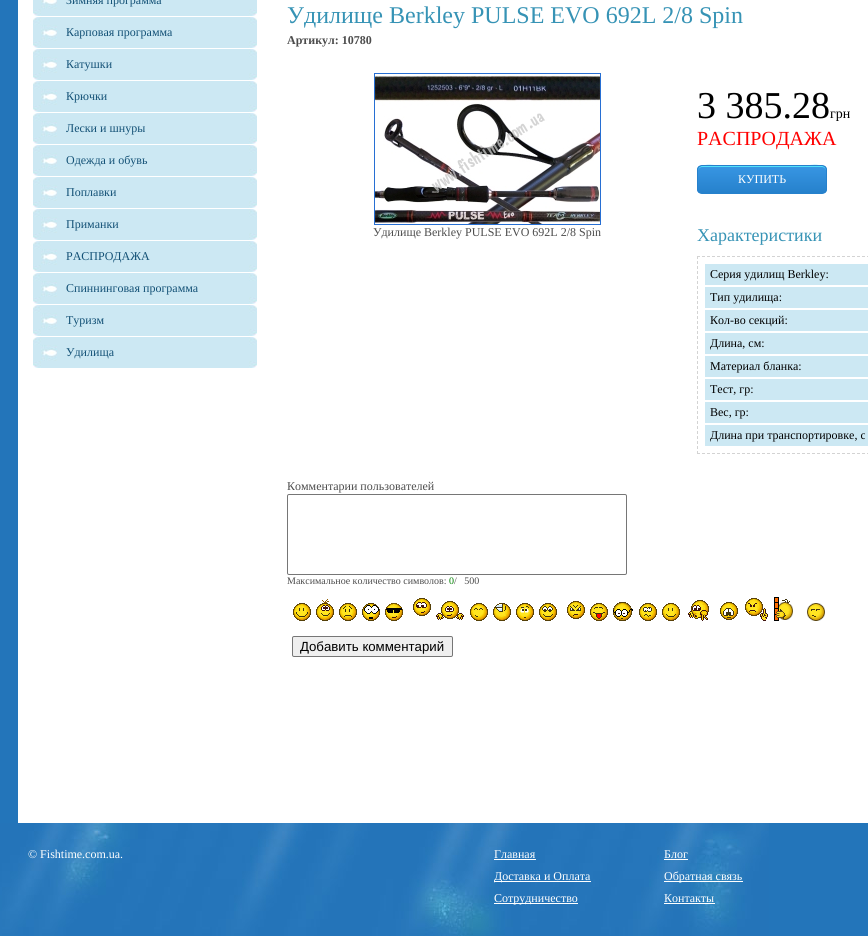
#include <cairo.h>
#include <math.h>
#include <stddef.h>


static void round_rect(cairo_t *cr, double x, double y, double w, double h, double r) {
    cairo_new_sub_path(cr);
    cairo_arc(cr, x + w - r, y + h - r, r, 0, M_PI / 2);
    cairo_arc(cr, x + r, y + h - r, r, M_PI / 2, M_PI);
    cairo_arc(cr, x + r, y + r, r, M_PI, 1.5 * M_PI);
    cairo_arc(cr, x + w - r, y + r, r, 1.5 * M_PI, 2 * M_PI);
    cairo_close_path(cr);
}

static void picture(cairo_t *cr, const char *path, double x, double y, double w, double h) {
    cairo_surface_t *image = cairo_image_surface_create_from_png(path);
    cairo_save(cr);
    cairo_set_source_surface(cr, image, x, y);
    cairo_rectangle(cr, x, y, w, h);
    cairo_fill(cr);
    cairo_restore(cr);
    cairo_surface_destroy(image);
}

int main(void) {
    cairo_surface_t *surface = cairo_image_surface_create(CAIRO_FORMAT_RGB24, 868, 937);
    cairo_t *cr = cairo_create(surface);
    cairo_font_options_t *options = cairo_font_options_create();
    cairo_font_options_set_hint_metrics(options, CAIRO_HINT_METRICS_OFF);
    cairo_font_options_set_hint_style(options, CAIRO_HINT_STYLE_NONE);
    cairo_set_font_options(cr, options);
    cairo_set_miter_limit(cr, 4);
    cairo_pattern_t *gradient;
    cairo_set_source_rgb(cr, 1, 1, 1);
    cairo_paint(cr);
    cairo_set_source_rgb(cr, 0.137, 0.459, 0.729);
    cairo_rectangle(cr, 0, 0, 868, 936);
    cairo_fill(cr);
    cairo_set_source_rgb(cr, 1, 1, 1);
    cairo_rectangle(cr, 18, 0, 850, 823);
    cairo_fill(cr);
    picture(cr, "img1.png", 33, 0, 224, 16);
    cairo_select_font_face(cr, "Liberation Serif", CAIRO_FONT_SLANT_NORMAL, CAIRO_FONT_WEIGHT_NORMAL);
    cairo_set_font_size(cr, 12);
    cairo_set_source_rgb(cr, 0.075, 0.318, 0.463);
    cairo_move_to(cr, 66, 4);
    cairo_show_text(cr, "Зимняя программа");
    picture(cr, "img2.png", 33, 17, 224, 31);
    cairo_move_to(cr, 66, 36);
    cairo_show_text(cr, "Карповая программа");
    picture(cr, "img2.png", 33, 49, 224, 31);
    cairo_move_to(cr, 66, 68);
    cairo_show_text(cr, "Катушки");
    picture(cr, "img2.png", 33, 81, 224, 31);
    cairo_move_to(cr, 66, 100);
    cairo_show_text(cr, "Крючки");
    picture(cr, "img2.png", 33, 113, 224, 31);
    cairo_move_to(cr, 66, 132);
    cairo_show_text(cr, "Лески и шнуры");
    picture(cr, "img2.png", 33, 145, 224, 31);
    cairo_move_to(cr, 66, 164);
    cairo_show_text(cr, "Одежда и обувь");
    picture(cr, "img2.png", 33, 177, 224, 31);
    cairo_move_to(cr, 66, 196);
    cairo_show_text(cr, "Поплавки");
    picture(cr, "img2.png", 33, 209, 224, 31);
    cairo_move_to(cr, 66, 228);
    cairo_show_text(cr, "Приманки");
    picture(cr, "img2.png", 33, 241, 224, 31);
    cairo_move_to(cr, 66, 260);
    cairo_show_text(cr, "РАСПРОДАЖА");
    picture(cr, "img2.png", 33, 273, 224, 31);
    cairo_move_to(cr, 66, 292);
    cairo_show_text(cr, "Спиннинговая программа");
    picture(cr, "img2.png", 33, 305, 224, 31);
    cairo_move_to(cr, 66, 324);
    cairo_show_text(cr, "Туризм");
    picture(cr, "img2.png", 33, 337, 224, 31);
    cairo_move_to(cr, 66, 356);
    cairo_show_text(cr, "Удилища");
    cairo_set_font_size(cr, 24);
    cairo_set_source_rgb(cr, 0.212, 0.576, 0.71);
    cairo_move_to(cr, 287, 23);
    cairo_show_text(cr, "Удилище Berkley PULSE EVO 692L 2/8 Spin");
    cairo_select_font_face(cr, "Liberation Serif", CAIRO_FONT_SLANT_NORMAL, CAIRO_FONT_WEIGHT_BOLD);
    cairo_set_font_size(cr, 12);
    cairo_set_source_rgb(cr, 0.298, 0.298, 0.298);
    cairo_move_to(cr, 287, 44);
    cairo_show_text(cr, "Артикул: 10780");
    cairo_rectangle(cr, 374.5, 73.5, 226, 151);
    cairo_set_source_rgb(cr, 0.153, 0.435, 0.827);
    cairo_set_line_width(cr, 1);
    cairo_stroke(cr);
    picture(cr, "img3.png", 375, 75, 225, 149);
    cairo_select_font_face(cr, "Liberation Serif", CAIRO_FONT_SLANT_NORMAL, CAIRO_FONT_WEIGHT_NORMAL);
    cairo_set_source_rgb(cr, 0.298, 0.298, 0.298);
    cairo_move_to(cr, 373, 236);
    cairo_show_text(cr, "Удилище Berkley PULSE EVO 692L 2/8 Spin");
    cairo_set_font_size(cr, 38);
    cairo_set_source_rgb(cr, 0, 0, 0);
    cairo_move_to(cr, 697, 118);
    cairo_show_text(cr, "3 385.28");
    cairo_set_font_size(cr, 14);
    cairo_move_to(cr, 830, 118);
    cairo_show_text(cr, "грн");
    cairo_set_font_size(cr, 20);
    cairo_set_source_rgb(cr, 1, 0, 0);
    cairo_move_to(cr, 697, 145);
    cairo_show_text(cr, "РАСПРОДАЖА");
    cairo_save(cr);
    round_rect(cr, 697, 165, 130, 29, 5);
    cairo_clip(cr);
    gradient = cairo_pattern_create_linear(698, 166, 698, 193);
    cairo_pattern_add_color_stop_rgba(gradient, 0.05, 0.216, 0.584, 0.886, 1);
    cairo_pattern_add_color_stop_rgba(gradient, 1, 0.149, 0.506, 0.8, 1);
    cairo_set_source(cr, gradient);
    cairo_pattern_destroy(gradient);
    cairo_rectangle(cr, 697, 166, 130, 27);
    cairo_fill(cr);
    cairo_restore(cr);
    cairo_set_source_rgb(cr, 0.325, 0.886, 0.984);
    cairo_new_path(cr);
    cairo_move_to(cr, 702, 167);
    cairo_line_to(cr, 822, 167);
    cairo_curve_to(cr, 824, 167, 826, 169, 826, 171);
    cairo_curve_to(cr, 826, 161, 804, 166, 802, 166);
    cairo_line_to(cr, 722, 166);
    cairo_curve_to(cr, 720, 166, 698, 161, 698, 171);
    cairo_curve_to(cr, 698, 169, 700, 167, 702, 167);
    cairo_close_path(cr);
    cairo_fill(cr);
    round_rect(cr, 697.5, 165.5, 129, 28, 4.5);
    cairo_set_source_rgb(cr, 0.149, 0.506, 0.8);
    cairo_stroke(cr);
    cairo_set_font_size(cr, 12);
    cairo_set_source_rgb(cr, 1, 1, 1);
    cairo_move_to(cr, 738, 183);
    cairo_show_text(cr, "КУПИТЬ");
    cairo_set_font_size(cr, 18);
    cairo_set_source_rgb(cr, 0.212, 0.576, 0.71);
    cairo_move_to(cr, 697, 241);
    cairo_show_text(cr, "Характеристики");
    cairo_new_path(cr);
    cairo_move_to(cr, 697, 256.5);
    cairo_line_to(cr, 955, 256.5);
    cairo_set_source_rgb(cr, 0.827, 0.827, 0.827);
    cairo_set_dash(cr, (double[]){3, 2}, 2, 0);
    cairo_stroke(cr);
    cairo_new_path(cr);
    cairo_move_to(cr, 697, 453.5);
    cairo_line_to(cr, 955, 453.5);
    cairo_stroke(cr);
    cairo_new_path(cr);
    cairo_move_to(cr, 697.5, 256);
    cairo_line_to(cr, 697.5, 454);
    cairo_stroke(cr);
    cairo_set_source_rgb(cr, 0.8, 0.91, 0.953);
    cairo_rectangle(cr, 705, 264, 163, 21);
    cairo_fill(cr);
    cairo_set_font_size(cr, 12);
    cairo_set_source_rgb(cr, 0, 0, 0);
    cairo_move_to(cr, 710, 278);
    cairo_show_text(cr, "Серия удилищ Berkley:");
    cairo_set_source_rgb(cr, 0.8, 0.91, 0.953);
    cairo_rectangle(cr, 705, 287, 163, 21);
    cairo_fill(cr);
    cairo_set_source_rgb(cr, 0, 0, 0);
    cairo_move_to(cr, 710, 301);
    cairo_show_text(cr, "Тип удилища:");
    cairo_set_source_rgb(cr, 0.8, 0.91, 0.953);
    cairo_rectangle(cr, 705, 310, 163, 21);
    cairo_fill(cr);
    cairo_set_source_rgb(cr, 0, 0, 0);
    cairo_move_to(cr, 710, 324);
    cairo_show_text(cr, "Кол-во секций:");
    cairo_set_source_rgb(cr, 0.8, 0.91, 0.953);
    cairo_rectangle(cr, 705, 333, 163, 21);
    cairo_fill(cr);
    cairo_set_source_rgb(cr, 0, 0, 0);
    cairo_move_to(cr, 710, 347);
    cairo_show_text(cr, "Длина, см:");
    cairo_set_source_rgb(cr, 0.8, 0.91, 0.953);
    cairo_rectangle(cr, 705, 356, 163, 21);
    cairo_fill(cr);
    cairo_set_source_rgb(cr, 0, 0, 0);
    cairo_move_to(cr, 710, 370);
    cairo_show_text(cr, "Материал бланка:");
    cairo_set_source_rgb(cr, 0.8, 0.91, 0.953);
    cairo_rectangle(cr, 705, 379, 163, 21);
    cairo_fill(cr);
    cairo_set_source_rgb(cr, 0, 0, 0);
    cairo_move_to(cr, 710, 393);
    cairo_show_text(cr, "Тест, гр:");
    cairo_set_source_rgb(cr, 0.8, 0.91, 0.953);
    cairo_rectangle(cr, 705, 402, 163, 21);
    cairo_fill(cr);
    cairo_set_source_rgb(cr, 0, 0, 0);
    cairo_move_to(cr, 710, 416);
    cairo_show_text(cr, "Вес, гр:");
    cairo_set_source_rgb(cr, 0.8, 0.91, 0.953);
    cairo_rectangle(cr, 705, 425, 163, 21);
    cairo_fill(cr);
    cairo_set_source_rgb(cr, 0, 0, 0);
    cairo_move_to(cr, 710, 439);
    cairo_show_text(cr, "Длина при транспортировке, с");
    cairo_set_source_rgb(cr, 0.298, 0.298, 0.298);
    cairo_move_to(cr, 287, 490);
    cairo_show_text(cr, "Комментарии пользователей");
    round_rect(cr, 287.5, 494.5, 339, 80, 1.5);
    cairo_set_source_rgb(cr, 0.463, 0.463, 0.463);
    cairo_set_dash(cr, NULL, 0, 0);
    cairo_stroke(cr);
    cairo_set_font_size(cr, 10);
    cairo_set_source_rgb(cr, 0.298, 0.298, 0.298);
    cairo_move_to(cr, 287, 584);
    cairo_show_text(cr, "Максимальное количество символов:");
    cairo_set_source_rgb(cr, 0, 0.502, 0);
    cairo_move_to(cr, 449, 584);
    cairo_show_text(cr, "0");
    cairo_set_source_rgb(cr, 0.298, 0.298, 0.298);
    cairo_move_to(cr, 454, 584);
    cairo_show_text(cr, "/   500");
    picture(cr, "img4.png", 293, 603, 18, 18);
    picture(cr, "img5.png", 316, 599, 18, 22);
    picture(cr, "img6.png", 339, 603, 18, 18);
    picture(cr, "img7.png", 362, 603, 18, 18);
    picture(cr, "img8.png", 385, 603, 18, 18);
    picture(cr, "img9.png", 413, 598, 18, 18);
    picture(cr, "img10.png", 436, 601, 28, 19);
    picture(cr, "img11.png", 470, 603, 18, 18);
    picture(cr, "img12.png", 493, 603, 18, 18);
    picture(cr, "img13.png", 516, 603, 18, 18);
    picture(cr, "img14.png", 539, 603, 18, 18);
    picture(cr, "img15.png", 567, 601, 18, 18);
    picture(cr, "img16.png", 590, 603, 18, 18);
    picture(cr, "img17.png", 613, 602, 20, 19);
    picture(cr, "img18.png", 639, 603, 18, 18);
    picture(cr, "img19.png", 662, 603, 18, 18);
    picture(cr, "img20.png", 688, 600, 21, 21);
    picture(cr, "img21.png", 720, 602, 18, 18);
    picture(cr, "img22.png", 745, 598, 23, 23);
    picture(cr, "img23.png", 774, 597, 19, 24);
    picture(cr, "img24.png", 807, 603, 18, 18);
    cairo_set_source_rgb(cr, 0.937, 0.937, 0.937);
    round_rect(cr, 292.5, 636.5, 160, 20, 1.5);
    cairo_fill_preserve(cr);
    cairo_set_source_rgb(cr, 0.463, 0.463, 0.463);
    cairo_stroke(cr);
    cairo_select_font_face(cr, "Liberation Sans", CAIRO_FONT_SLANT_NORMAL, CAIRO_FONT_WEIGHT_NORMAL);
    cairo_set_font_size(cr, 13.25);
    cairo_set_source_rgb(cr, 0, 0, 0);
    cairo_move_to(cr, 300, 651);
    cairo_show_text(cr, "Добавить комментарий");
    picture(cr, "img25.png", 0, 823, 769, 113);
    cairo_select_font_face(cr, "Liberation Serif", CAIRO_FONT_SLANT_NORMAL, CAIRO_FONT_WEIGHT_NORMAL);
    cairo_set_font_size(cr, 12);
    cairo_set_source_rgb(cr, 1, 1, 1);
    cairo_move_to(cr, 28, 858);
    cairo_show_text(cr, "© Fishtime.com.ua.");
    cairo_move_to(cr, 494, 858);
    cairo_show_text(cr, "Главная");
    cairo_rectangle(cr, 494, 859, 42, 1);
    cairo_fill(cr);
    cairo_rectangle(cr, 494, 881, 97, 1);
    cairo_fill(cr);
    cairo_move_to(cr, 494, 880);
    cairo_show_text(cr, "Доставка и Оплата");
    cairo_rectangle(cr, 494, 903, 84, 1);
    cairo_fill(cr);
    cairo_move_to(cr, 494, 902);
    cairo_show_text(cr, "Сотрудничество");
    cairo_move_to(cr, 664, 858);
    cairo_show_text(cr, "Блог");
    cairo_rectangle(cr, 664, 859, 24, 1);
    cairo_fill(cr);
    cairo_rectangle(cr, 664, 881, 79, 1);
    cairo_fill(cr);
    cairo_move_to(cr, 664, 880);
    cairo_show_text(cr, "Обратная связь");
    cairo_move_to(cr, 664, 902);
    cairo_show_text(cr, "Контакты");
    cairo_rectangle(cr, 664, 903, 51, 1);
    cairo_fill(cr);
    cairo_surface_write_to_png(surface, "page.png");
    cairo_font_options_destroy(options);
    cairo_destroy(cr);
    cairo_surface_destroy(surface);
    return 0;
}
